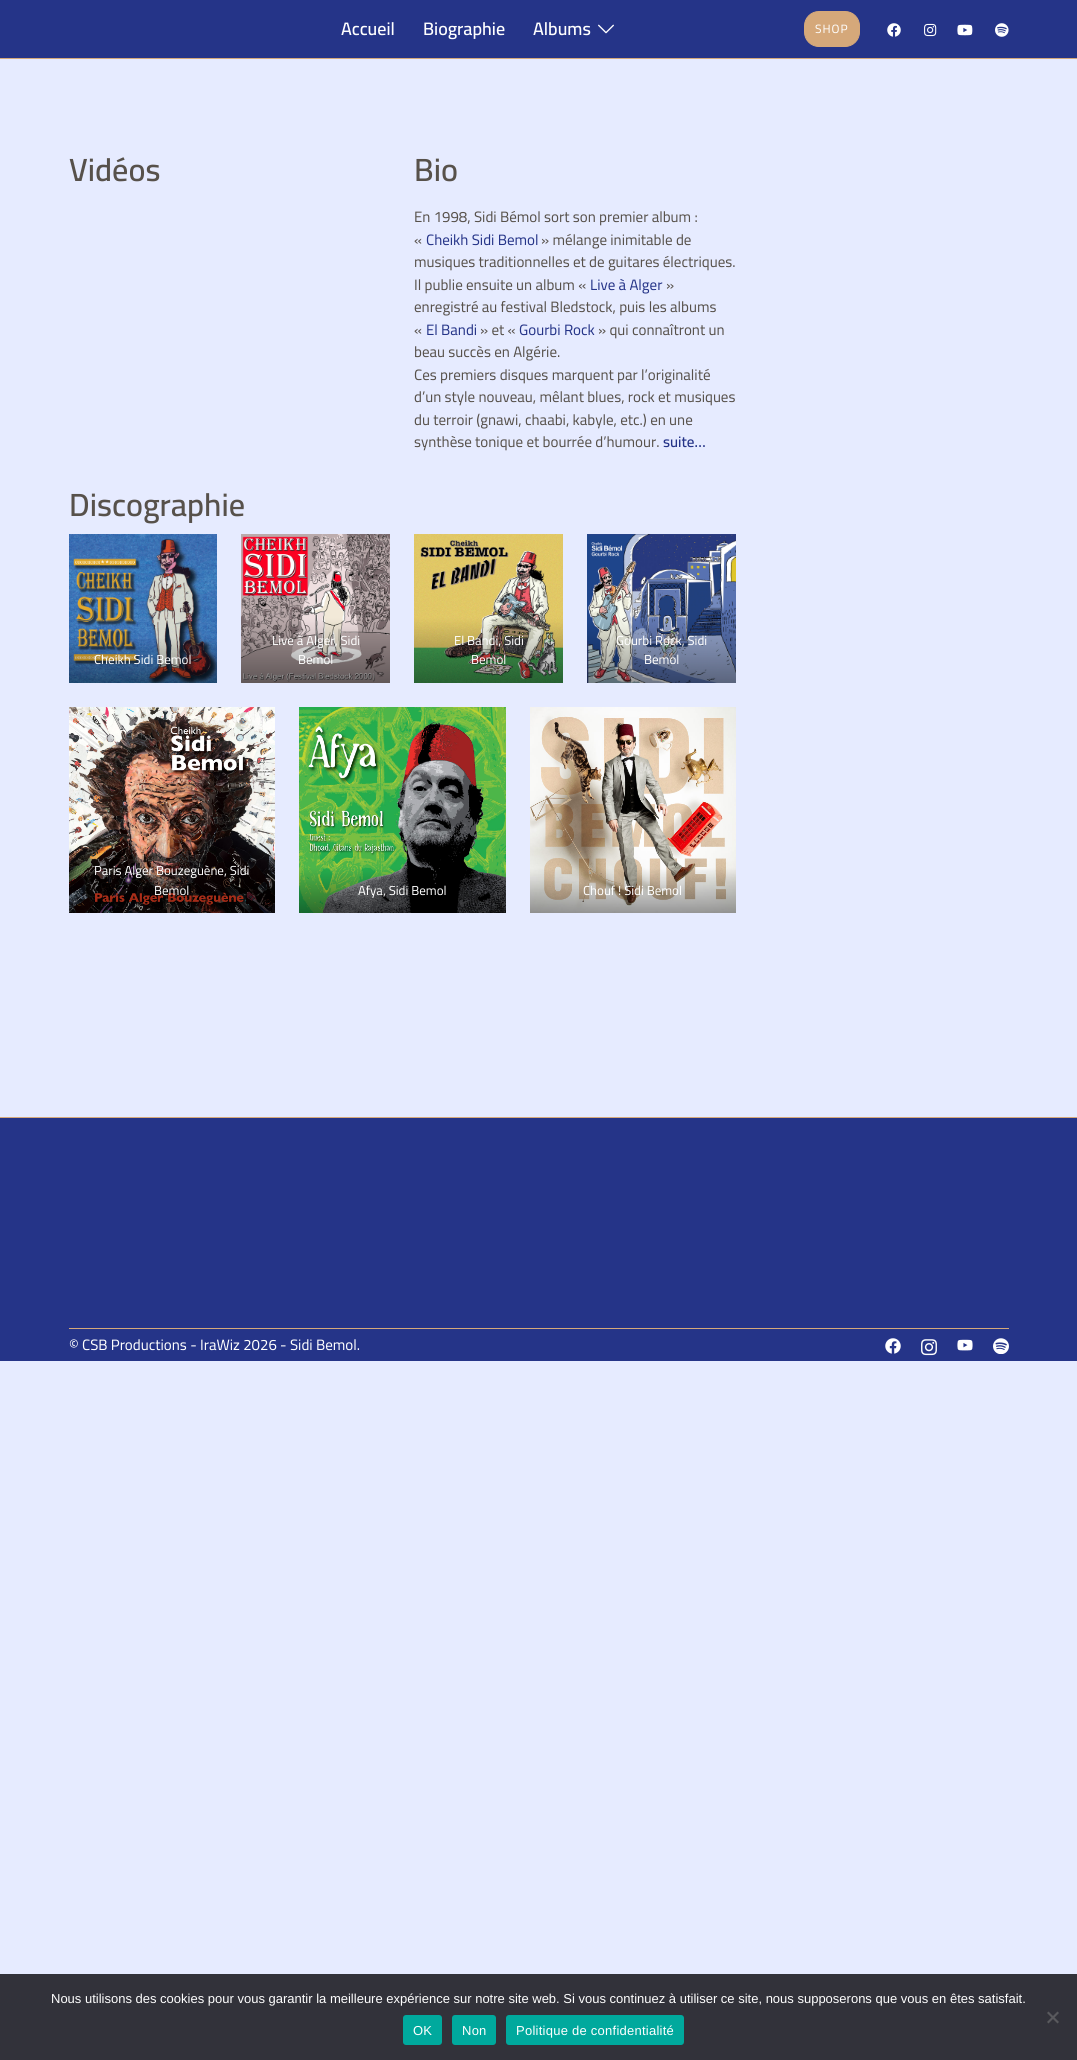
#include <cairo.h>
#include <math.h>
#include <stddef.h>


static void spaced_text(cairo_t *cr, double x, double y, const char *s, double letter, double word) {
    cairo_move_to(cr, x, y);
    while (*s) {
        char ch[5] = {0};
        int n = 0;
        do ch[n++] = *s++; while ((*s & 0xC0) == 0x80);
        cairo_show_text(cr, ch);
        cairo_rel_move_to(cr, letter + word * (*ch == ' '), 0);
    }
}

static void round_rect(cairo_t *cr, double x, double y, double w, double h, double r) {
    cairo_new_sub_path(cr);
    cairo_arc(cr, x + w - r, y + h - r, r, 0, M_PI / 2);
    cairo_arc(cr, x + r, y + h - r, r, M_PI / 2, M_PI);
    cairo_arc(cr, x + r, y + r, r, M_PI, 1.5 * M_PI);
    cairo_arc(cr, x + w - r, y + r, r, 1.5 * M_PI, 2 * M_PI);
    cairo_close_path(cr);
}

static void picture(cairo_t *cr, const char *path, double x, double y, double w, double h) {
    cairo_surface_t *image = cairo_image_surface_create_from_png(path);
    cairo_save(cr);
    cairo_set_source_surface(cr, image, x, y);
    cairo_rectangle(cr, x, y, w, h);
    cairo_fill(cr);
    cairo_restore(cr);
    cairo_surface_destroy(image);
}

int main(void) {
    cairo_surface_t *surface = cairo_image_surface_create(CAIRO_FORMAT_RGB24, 1077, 2060);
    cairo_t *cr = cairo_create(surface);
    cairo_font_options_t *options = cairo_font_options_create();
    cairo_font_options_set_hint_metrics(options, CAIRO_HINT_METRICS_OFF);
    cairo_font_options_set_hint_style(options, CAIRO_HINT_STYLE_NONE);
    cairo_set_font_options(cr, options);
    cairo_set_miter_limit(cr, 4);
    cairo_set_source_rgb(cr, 0.902, 0.918, 1);
    cairo_paint(cr);
    cairo_set_source_rgb(cr, 0.145, 0.204, 0.533);
    cairo_rectangle(cr, 0, 0, 1077, 58);
    cairo_fill(cr);
    cairo_set_source_rgb(cr, 0.835, 0.659, 0.478);
    cairo_rectangle(cr, 0, 58, 1077, 1);
    cairo_fill(cr);
    cairo_select_font_face(cr, "Cairo SemiBold", CAIRO_FONT_SLANT_NORMAL, CAIRO_FONT_WEIGHT_NORMAL);
    cairo_set_font_size(cr, 18);
    cairo_set_source_rgb(cr, 1, 1, 1);
    cairo_move_to(cr, 341, 35);
    cairo_show_text(cr, "Accueil");
    cairo_move_to(cr, 423, 35);
    cairo_show_text(cr, "Biographie");
    cairo_move_to(cr, 533, 35);
    cairo_show_text(cr, "Albums");
    picture(cr, "img1.png", 598, 24, 16, 10);
    cairo_set_source_rgb(cr, 0.835, 0.659, 0.478);
    round_rect(cr, 804.5, 11.5, 55, 35, 14.5);
    cairo_fill_preserve(cr);
    cairo_set_line_width(cr, 1);
    cairo_stroke(cr);
    cairo_select_font_face(cr, "Cairo", CAIRO_FONT_SLANT_NORMAL, CAIRO_FONT_WEIGHT_NORMAL);
    cairo_set_font_size(cr, 12);
    cairo_set_source_rgb(cr, 1, 1, 1);
    spaced_text(cr, 815, 33, "SHOP", 1, 0);
    picture(cr, "img2.png", 887, 23, 14, 14);
    picture(cr, "img3.png", 924, 23, 13, 14);
    picture(cr, "img4.png", 957, 24, 16, 12);
    picture(cr, "img5.png", 995, 23, 14, 14);
    cairo_select_font_face(cr, "Cairo SemiBold", CAIRO_FONT_SLANT_NORMAL, CAIRO_FONT_WEIGHT_NORMAL);
    cairo_set_font_size(cr, 32);
    cairo_set_source_rgb(cr, 0.341, 0.318, 0.294);
    cairo_move_to(cr, 69, 181);
    cairo_show_text(cr, "Vidéos");
    cairo_move_to(cr, 414, 181);
    cairo_show_text(cr, "Bio");
    cairo_select_font_face(cr, "Cairo", CAIRO_FONT_SLANT_NORMAL, CAIRO_FONT_WEIGHT_NORMAL);
    cairo_set_font_size(cr, 15);
    cairo_move_to(cr, 414, 222);
    cairo_show_text(cr, "En 1998, Sidi Bémol sort son premier album :");
    cairo_move_to(cr, 414, 245);
    cairo_show_text(cr, "«");
    cairo_set_source_rgb(cr, 0.145, 0.204, 0.533);
    cairo_move_to(cr, 426, 245);
    cairo_show_text(cr, "Cheikh Sidi Bemol");
    cairo_set_source_rgb(cr, 0.341, 0.318, 0.294);
    cairo_move_to(cr, 541, 245);
    cairo_show_text(cr, "» mélange inimitable de");
    cairo_move_to(cr, 414, 267);
    cairo_show_text(cr, "musiques traditionnelles et de guitares électriques.");
    cairo_move_to(cr, 414, 290);
    cairo_show_text(cr, "Il publie ensuite un album «");
    cairo_set_source_rgb(cr, 0.145, 0.204, 0.533);
    cairo_move_to(cr, 590, 290);
    cairo_show_text(cr, "Live à Alger");
    cairo_set_source_rgb(cr, 0.341, 0.318, 0.294);
    cairo_move_to(cr, 666, 290);
    cairo_show_text(cr, "»");
    cairo_move_to(cr, 414, 312);
    cairo_show_text(cr, "enregistré au festival Bledstock, puis les albums");
    cairo_move_to(cr, 414, 335);
    cairo_show_text(cr, "«");
    cairo_set_source_rgb(cr, 0.145, 0.204, 0.533);
    cairo_move_to(cr, 426, 335);
    cairo_show_text(cr, "El Bandi");
    cairo_set_source_rgb(cr, 0.341, 0.318, 0.294);
    cairo_move_to(cr, 480, 335);
    cairo_show_text(cr, "» et «");
    cairo_set_source_rgb(cr, 0.145, 0.204, 0.533);
    cairo_move_to(cr, 519, 335);
    cairo_show_text(cr, "Gourbi Rock");
    cairo_set_source_rgb(cr, 0.341, 0.318, 0.294);
    cairo_move_to(cr, 598, 335);
    cairo_show_text(cr, "» qui connaîtront un");
    cairo_move_to(cr, 414, 357);
    cairo_show_text(cr, "beau succès en Algérie.");
    cairo_move_to(cr, 414, 380);
    cairo_show_text(cr, "Ces premiers disques marquent par l’originalité");
    cairo_move_to(cr, 414, 402);
    cairo_show_text(cr, "d’un style nouveau, mêlant blues, rock et musiques");
    cairo_move_to(cr, 414, 425);
    cairo_show_text(cr, "du terroir (gnawi, chaabi, kabyle, etc.) en une");
    cairo_move_to(cr, 414, 447);
    cairo_show_text(cr, "synthèse tonique et bourrée d’humour.");
    cairo_select_font_face(cr, "Cairo SemiBold", CAIRO_FONT_SLANT_NORMAL, CAIRO_FONT_WEIGHT_NORMAL);
    cairo_set_source_rgb(cr, 0.145, 0.204, 0.533);
    cairo_move_to(cr, 663, 447);
    cairo_show_text(cr, "suite…");
    cairo_set_font_size(cr, 32);
    cairo_set_source_rgb(cr, 0.341, 0.318, 0.294);
    cairo_move_to(cr, 69, 516);
    cairo_show_text(cr, "Discographie");
    picture(cr, "img6.png", 69, 534, 148, 149);
    cairo_select_font_face(cr, "Cairo", CAIRO_FONT_SLANT_NORMAL, CAIRO_FONT_WEIGHT_NORMAL);
    cairo_set_font_size(cr, 13);
    cairo_set_source_rgb(cr, 1, 1, 1);
    cairo_move_to(cr, 94, 664);
    cairo_show_text(cr, "Cheikh Sidi Bemol");
    picture(cr, "img7.png", 241, 534, 149, 149);
    cairo_move_to(cr, 272, 645);
    cairo_show_text(cr, "Live à Alger, Sidi");
    cairo_move_to(cr, 298, 664);
    cairo_show_text(cr, "Bemol");
    picture(cr, "img8.png", 414, 534, 149, 149);
    cairo_move_to(cr, 454, 645);
    cairo_show_text(cr, "El Bandi, Sidi");
    cairo_move_to(cr, 471, 664);
    cairo_show_text(cr, "Bemol");
    picture(cr, "img9.png", 587, 534, 149, 149);
    cairo_move_to(cr, 616, 645);
    cairo_show_text(cr, "Gourbi Rock, Sidi");
    cairo_move_to(cr, 644, 664);
    cairo_show_text(cr, "Bemol");
    picture(cr, "img10.png", 69, 707, 206, 206);
    cairo_move_to(cr, 94, 875);
    cairo_show_text(cr, "Paris Alger Bouzeguène, Sidi");
    cairo_move_to(cr, 154, 895);
    cairo_show_text(cr, "Bemol");
    picture(cr, "img11.png", 299, 707, 207, 206);
    cairo_move_to(cr, 358, 895);
    cairo_show_text(cr, "Afya, Sidi Bemol");
    picture(cr, "img12.png", 530, 707, 206, 206);
    cairo_move_to(cr, 583, 895);
    cairo_show_text(cr, "Chouf ! Sidi Bemol");
    cairo_set_source_rgb(cr, 0.145, 0.204, 0.533);
    cairo_rectangle(cr, 0, 1118, 1077, 243);
    cairo_fill(cr);
    cairo_set_source_rgb(cr, 0.835, 0.659, 0.478);
    cairo_rectangle(cr, 0, 1117, 1077, 1);
    cairo_fill(cr);
    cairo_rectangle(cr, 69, 1328, 940, 1);
    cairo_fill(cr);
    cairo_set_font_size(cr, 15);
    cairo_set_source_rgb(cr, 1, 1, 1);
    cairo_move_to(cr, 69, 1350);
    cairo_show_text(cr, "© CSB Productions - IraWiz 2026 - Sidi Bemol.");
    picture(cr, "img13.png", 885, 1338, 16, 16);
    picture(cr, "img14.png", 921, 1339, 16, 17);
    picture(cr, "img15.png", 957, 1339, 16, 12);
    picture(cr, "img16.png", 993, 1338, 16, 16);
    cairo_set_source_rgb(cr, 0.196, 0.196, 0.227);
    cairo_rectangle(cr, 0, 1974, 1077, 86);
    cairo_fill(cr);
    cairo_select_font_face(cr, "Liberation Sans", CAIRO_FONT_SLANT_NORMAL, CAIRO_FONT_WEIGHT_NORMAL);
    cairo_set_font_size(cr, 13);
    cairo_set_source_rgb(cr, 1, 1, 1);
    cairo_move_to(cr, 51, 2003);
    cairo_show_text(cr, "Nous utilisons des cookies pour vous garantir la meilleure expérience sur notre site web. Si vous continuez à utiliser ce site, nous supposerons que vous en êtes satisfait.");
    cairo_set_source_rgb(cr, 0.349, 0.349, 0.365);
    cairo_new_path(cr);
    cairo_move_to(cr, 1057.5, 2011.5);
    cairo_line_to(cr, 1059, 2013);
    cairo_line_to(cr, 1048.5, 2023.5);
    cairo_line_to(cr, 1047, 2022);
    cairo_close_path(cr);
    cairo_fill(cr);
    cairo_new_path(cr);
    cairo_move_to(cr, 1047, 2013);
    cairo_line_to(cr, 1048.5, 2011.5);
    cairo_line_to(cr, 1059, 2022);
    cairo_line_to(cr, 1057.5, 2023.5);
    cairo_close_path(cr);
    cairo_fill(cr);
    cairo_set_source_rgb(cr, 0, 0.663, 0.616);
    round_rect(cr, 403, 2015, 39, 30, 3);
    cairo_fill(cr);
    cairo_set_source_rgb(cr, 1, 1, 1);
    spaced_text(cr, 413, 2035, "OK", 0.25, 0);
    cairo_set_source_rgb(cr, 0, 0.663, 0.616);
    round_rect(cr, 452, 2015, 44, 30, 3);
    cairo_fill(cr);
    cairo_set_source_rgb(cr, 1, 1, 1);
    spaced_text(cr, 462, 2035, "Non", 0.25, 0);
    cairo_set_source_rgb(cr, 0, 0.663, 0.616);
    round_rect(cr, 506, 2015, 178, 30, 3);
    cairo_fill(cr);
    cairo_set_source_rgb(cr, 1, 1, 1);
    spaced_text(cr, 516, 2035, "Politique de confidentialité", 0.25, 0);
    cairo_surface_write_to_png(surface, "page.png");
    cairo_font_options_destroy(options);
    cairo_destroy(cr);
    cairo_surface_destroy(surface);
    return 0;
}
